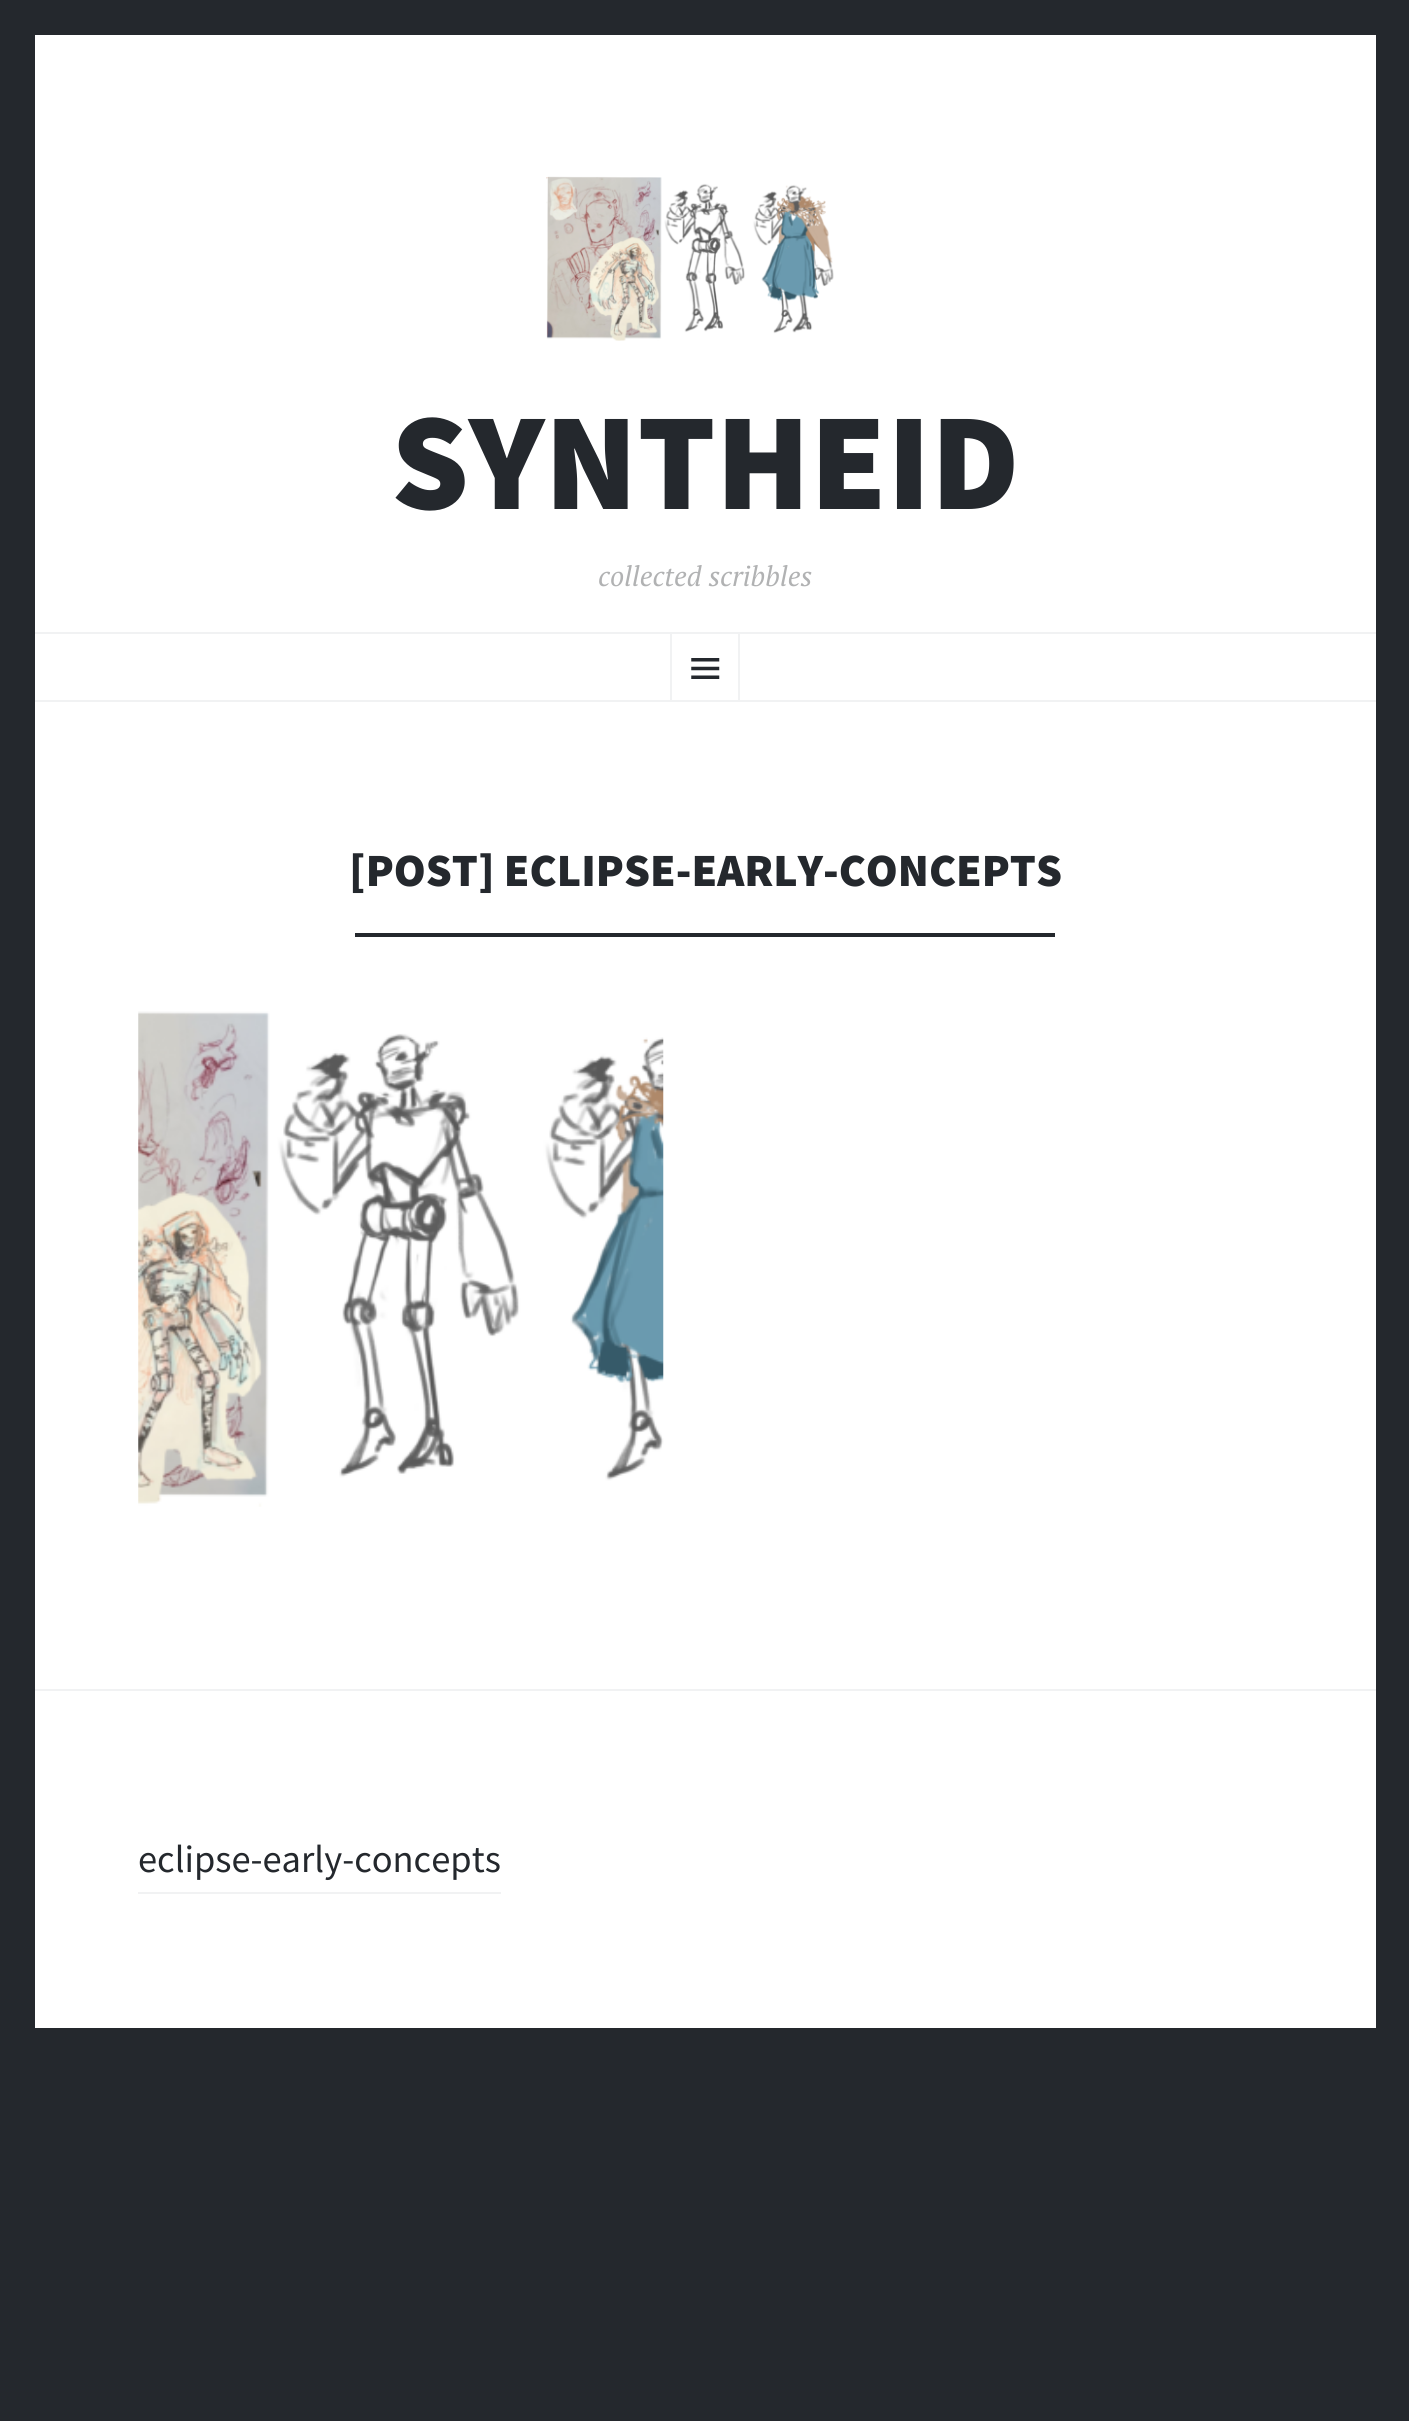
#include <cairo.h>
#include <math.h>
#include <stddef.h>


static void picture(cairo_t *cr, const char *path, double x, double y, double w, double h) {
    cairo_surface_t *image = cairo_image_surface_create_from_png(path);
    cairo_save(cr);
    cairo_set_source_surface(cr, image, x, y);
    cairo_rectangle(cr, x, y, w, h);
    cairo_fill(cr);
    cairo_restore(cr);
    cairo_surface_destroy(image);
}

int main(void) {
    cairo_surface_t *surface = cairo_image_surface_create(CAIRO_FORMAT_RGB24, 1409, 2421);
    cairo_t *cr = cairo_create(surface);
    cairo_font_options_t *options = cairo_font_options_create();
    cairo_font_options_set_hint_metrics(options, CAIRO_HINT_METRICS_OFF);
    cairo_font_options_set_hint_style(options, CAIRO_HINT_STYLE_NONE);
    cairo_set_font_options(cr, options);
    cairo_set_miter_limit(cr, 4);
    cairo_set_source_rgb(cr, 0.141, 0.157, 0.176);
    cairo_paint(cr);
    cairo_set_source_rgb(cr, 1, 1, 1);
    cairo_rectangle(cr, 35, 35, 1341, 1993);
    cairo_fill(cr);
    picture(cr, "img1.png", 546, 176, 288, 165);
    cairo_select_font_face(cr, "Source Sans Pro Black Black", CAIRO_FONT_SLANT_NORMAL, CAIRO_FONT_WEIGHT_NORMAL);
    cairo_set_font_size(cr, 138.5);
    cairo_set_source_rgb(cr, 0.141, 0.157, 0.176);
    cairo_move_to(cr, 391, 509);
    cairo_show_text(cr, "SYNTHEID");
    cairo_select_font_face(cr, "PT Serif", CAIRO_FONT_SLANT_ITALIC, CAIRO_FONT_WEIGHT_NORMAL);
    cairo_set_font_size(cr, 28);
    cairo_set_source_rgb(cr, 0.694, 0.698, 0.702);
    cairo_move_to(cr, 598, 586);
    cairo_show_text(cr, "collected scribbles");
    cairo_set_source_rgb(cr, 0.945, 0.949, 0.953);
    cairo_rectangle(cr, 35, 632, 1341, 2);
    cairo_fill(cr);
    cairo_rectangle(cr, 35, 700, 1341, 2);
    cairo_fill(cr);
    cairo_rectangle(cr, 671, 633, 68, 68);
    cairo_stroke(cr);
    picture(cr, "img2.png", 691, 658, 29, 21);
    cairo_select_font_face(cr, "Source Sans Pro Black Black", CAIRO_FONT_SLANT_NORMAL, CAIRO_FONT_WEIGHT_NORMAL);
    cairo_set_font_size(cr, 46.25);
    cairo_set_source_rgb(cr, 0.141, 0.157, 0.176);
    cairo_move_to(cr, 349, 886);
    cairo_show_text(cr, "[POST] ECLIPSE-EARLY-CONCEPTS");
    cairo_rectangle(cr, 355, 933, 700, 4);
    cairo_fill(cr);
    picture(cr, "img3.png", 138, 1011, 526, 496);
    cairo_set_source_rgb(cr, 0.945, 0.949, 0.953);
    cairo_rectangle(cr, 35, 1689, 1341, 2);
    cairo_fill(cr);
    cairo_select_font_face(cr, "Source Sans Pro", CAIRO_FONT_SLANT_NORMAL, CAIRO_FONT_WEIGHT_NORMAL);
    cairo_set_font_size(cr, 38.5);
    cairo_set_source_rgb(cr, 0.141, 0.157, 0.176);
    cairo_move_to(cr, 138, 1872);
    cairo_show_text(cr, "eclipse-early-concepts");
    cairo_set_source_rgb(cr, 0.945, 0.949, 0.953);
    cairo_rectangle(cr, 138, 1892, 363, 2);
    cairo_fill(cr);
    cairo_surface_write_to_png(surface, "page.png");
    cairo_font_options_destroy(options);
    cairo_destroy(cr);
    cairo_surface_destroy(surface);
    return 0;
}
